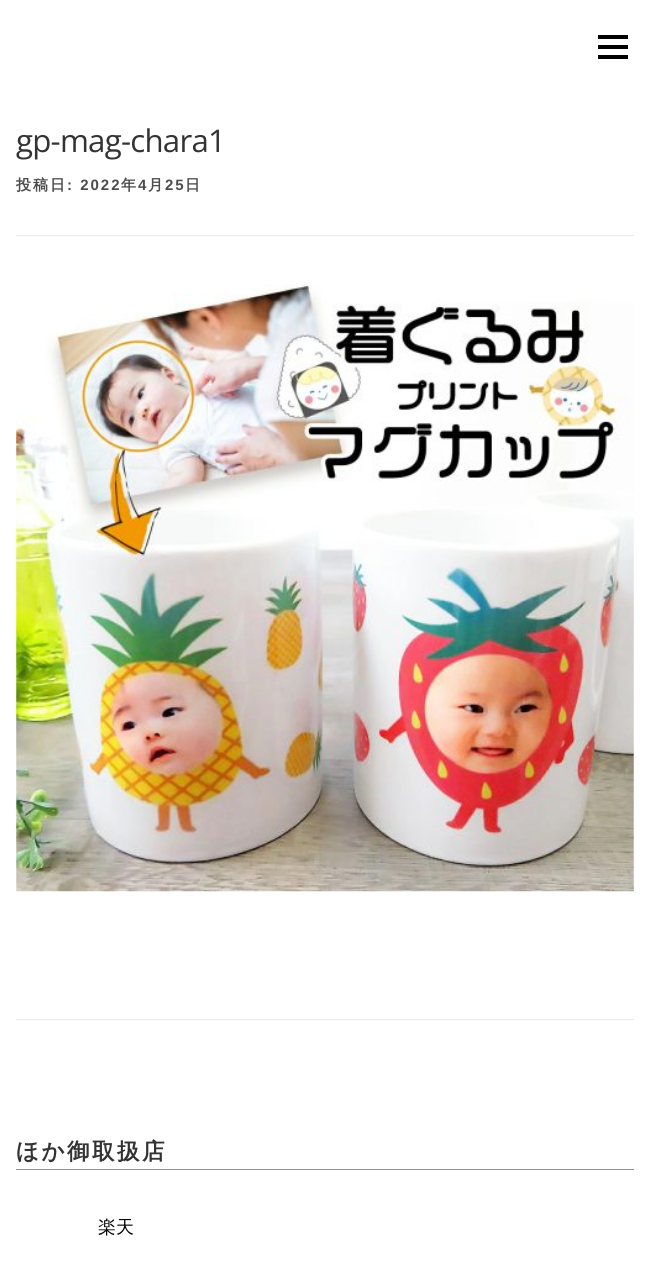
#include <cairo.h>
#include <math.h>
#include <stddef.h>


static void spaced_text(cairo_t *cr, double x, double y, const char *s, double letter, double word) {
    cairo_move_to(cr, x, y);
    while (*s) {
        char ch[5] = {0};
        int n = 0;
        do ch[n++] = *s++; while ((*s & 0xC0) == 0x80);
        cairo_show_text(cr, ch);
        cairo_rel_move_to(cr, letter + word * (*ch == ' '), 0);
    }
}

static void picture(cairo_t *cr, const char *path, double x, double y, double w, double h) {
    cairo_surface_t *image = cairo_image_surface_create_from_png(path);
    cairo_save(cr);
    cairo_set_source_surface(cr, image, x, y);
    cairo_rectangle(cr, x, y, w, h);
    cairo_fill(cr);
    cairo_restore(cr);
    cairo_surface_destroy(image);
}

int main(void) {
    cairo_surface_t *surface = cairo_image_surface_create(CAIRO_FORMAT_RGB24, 650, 1264);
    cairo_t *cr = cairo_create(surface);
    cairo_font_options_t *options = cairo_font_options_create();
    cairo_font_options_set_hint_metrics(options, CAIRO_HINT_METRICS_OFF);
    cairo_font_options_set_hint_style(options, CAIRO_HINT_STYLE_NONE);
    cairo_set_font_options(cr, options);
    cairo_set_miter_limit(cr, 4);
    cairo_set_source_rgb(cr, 1, 1, 1);
    cairo_paint(cr);
    cairo_set_source_rgb(cr, 0, 0, 0);
    cairo_rectangle(cr, 598, 45, 30, 4);
    cairo_fill(cr);
    cairo_rectangle(cr, 598, 35, 30, 4);
    cairo_fill(cr);
    cairo_rectangle(cr, 598, 55, 30, 4);
    cairo_fill(cr);
    cairo_select_font_face(cr, "Open Sans", CAIRO_FONT_SLANT_NORMAL, CAIRO_FONT_WEIGHT_NORMAL);
    cairo_set_font_size(cr, 31.25);
    cairo_set_source_rgb(cr, 0.2, 0.2, 0.2);
    spaced_text(cr, 16, 152, "gp-mag-chara1", -0.75, 0);
    cairo_set_source_rgb(cr, 0.914, 0.914, 0.914);
    cairo_rectangle(cr, 16, 235, 618, 1);
    cairo_fill(cr);
    cairo_select_font_face(cr, "WenQuanYi Zen Hei", CAIRO_FONT_SLANT_NORMAL, CAIRO_FONT_WEIGHT_BOLD);
    cairo_set_font_size(cr, 15);
    cairo_set_source_rgb(cr, 0.298, 0.298, 0.298);
    spaced_text(cr, 16, 190, "投稿日", 2, 0);
    cairo_select_font_face(cr, "Liberation Sans", CAIRO_FONT_SLANT_NORMAL, CAIRO_FONT_WEIGHT_BOLD);
    spaced_text(cr, 67, 190, ": 2022", 2, 0);
    cairo_select_font_face(cr, "WenQuanYi Zen Hei", CAIRO_FONT_SLANT_NORMAL, CAIRO_FONT_WEIGHT_BOLD);
    spaced_text(cr, 121, 190, "年", 2, 0);
    cairo_select_font_face(cr, "Liberation Sans", CAIRO_FONT_SLANT_NORMAL, CAIRO_FONT_WEIGHT_BOLD);
    spaced_text(cr, 138, 190, "4", 2, 0);
    cairo_select_font_face(cr, "WenQuanYi Zen Hei", CAIRO_FONT_SLANT_NORMAL, CAIRO_FONT_WEIGHT_BOLD);
    spaced_text(cr, 148, 190, "月", 2, 0);
    cairo_select_font_face(cr, "Liberation Sans", CAIRO_FONT_SLANT_NORMAL, CAIRO_FONT_WEIGHT_BOLD);
    spaced_text(cr, 165, 190, "25", 2, 0);
    cairo_select_font_face(cr, "WenQuanYi Zen Hei", CAIRO_FONT_SLANT_NORMAL, CAIRO_FONT_WEIGHT_BOLD);
    spaced_text(cr, 185, 190, "日", 2, 0);
    picture(cr, "img1.png", 16, 284, 618, 608);
    cairo_set_source_rgb(cr, 0.914, 0.914, 0.914);
    cairo_rectangle(cr, 16, 1019, 618, 1);
    cairo_fill(cr);
    cairo_set_source_rgb(cr, 0.573, 0.573, 0.573);
    cairo_rectangle(cr, 16, 1169, 618, 1);
    cairo_fill(cr);
    cairo_set_font_size(cr, 22.5);
    cairo_set_source_rgb(cr, 0.2, 0.2, 0.2);
    spaced_text(cr, 16, 1159, "ほか御取扱店", 2.5, 0);
    cairo_select_font_face(cr, "WenQuanYi Zen Hei Medium", CAIRO_FONT_SLANT_NORMAL, CAIRO_FONT_WEIGHT_NORMAL);
    cairo_set_font_size(cr, 18);
    cairo_set_source_rgb(cr, 0, 0, 0);
    cairo_move_to(cr, 98, 1233);
    cairo_show_text(cr, "楽天");
    cairo_surface_write_to_png(surface, "page.png");
    cairo_font_options_destroy(options);
    cairo_destroy(cr);
    cairo_surface_destroy(surface);
    return 0;
}
